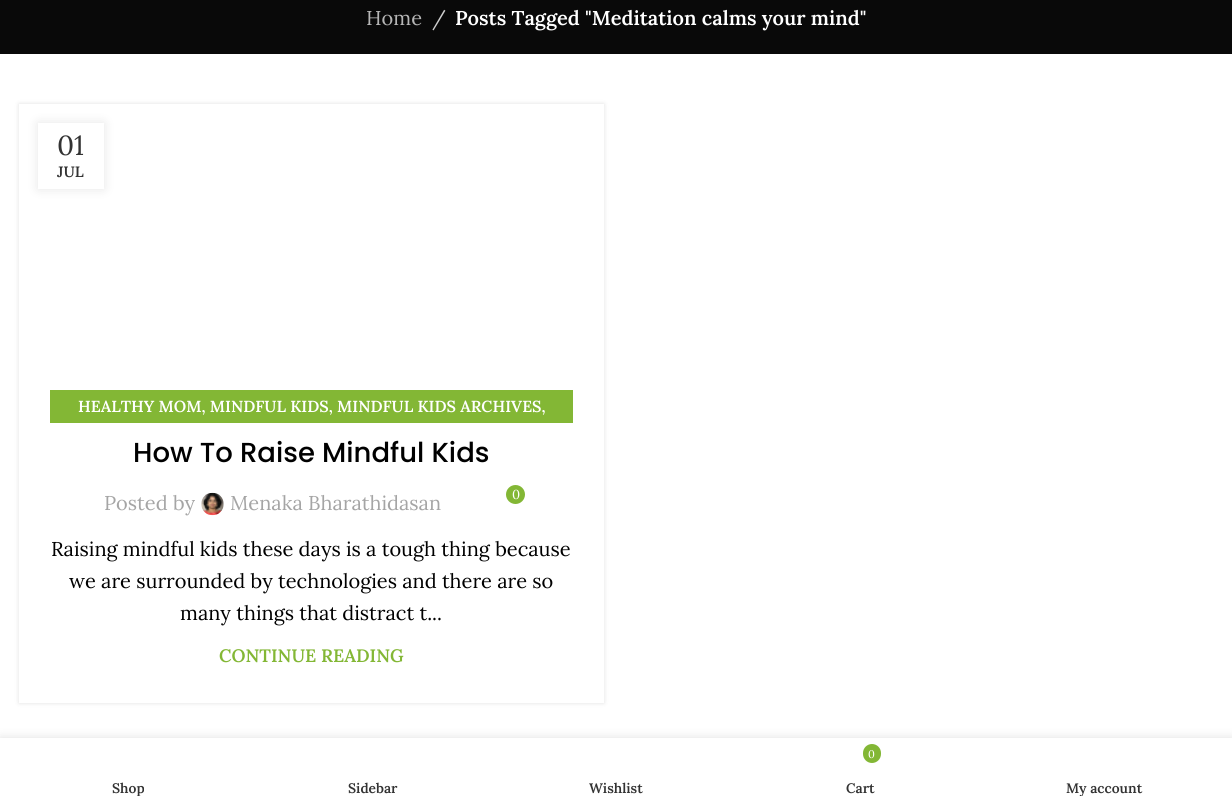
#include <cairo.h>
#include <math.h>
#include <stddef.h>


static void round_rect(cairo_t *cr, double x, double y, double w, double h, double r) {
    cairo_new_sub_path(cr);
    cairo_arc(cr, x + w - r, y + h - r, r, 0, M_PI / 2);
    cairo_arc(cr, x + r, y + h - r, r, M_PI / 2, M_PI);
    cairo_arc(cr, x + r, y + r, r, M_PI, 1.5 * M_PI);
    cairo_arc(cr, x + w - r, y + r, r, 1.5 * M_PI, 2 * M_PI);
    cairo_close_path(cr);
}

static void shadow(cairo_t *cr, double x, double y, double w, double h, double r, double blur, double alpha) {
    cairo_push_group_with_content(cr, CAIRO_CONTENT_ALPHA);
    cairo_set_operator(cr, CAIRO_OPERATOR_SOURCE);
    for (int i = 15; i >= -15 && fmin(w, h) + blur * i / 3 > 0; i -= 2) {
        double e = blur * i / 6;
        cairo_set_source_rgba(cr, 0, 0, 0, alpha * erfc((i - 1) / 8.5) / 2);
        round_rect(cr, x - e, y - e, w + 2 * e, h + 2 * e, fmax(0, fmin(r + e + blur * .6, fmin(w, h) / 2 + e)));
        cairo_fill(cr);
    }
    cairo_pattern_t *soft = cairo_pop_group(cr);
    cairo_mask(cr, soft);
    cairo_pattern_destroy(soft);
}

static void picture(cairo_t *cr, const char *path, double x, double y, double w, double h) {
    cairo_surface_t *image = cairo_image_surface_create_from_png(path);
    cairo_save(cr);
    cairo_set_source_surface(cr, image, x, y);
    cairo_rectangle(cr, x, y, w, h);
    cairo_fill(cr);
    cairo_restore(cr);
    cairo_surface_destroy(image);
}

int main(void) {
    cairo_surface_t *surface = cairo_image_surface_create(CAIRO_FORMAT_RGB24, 1232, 806);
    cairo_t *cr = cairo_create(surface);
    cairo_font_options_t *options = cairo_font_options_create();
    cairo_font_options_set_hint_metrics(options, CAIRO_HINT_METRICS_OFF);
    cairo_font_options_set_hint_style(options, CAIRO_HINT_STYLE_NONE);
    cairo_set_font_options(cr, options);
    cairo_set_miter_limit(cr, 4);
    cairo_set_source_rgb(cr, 1, 1, 1);
    cairo_paint(cr);
    cairo_set_source_rgb(cr, 0.039, 0.039, 0.039);
    cairo_rectangle(cr, 0, 0, 1232, 54);
    cairo_fill(cr);
    cairo_select_font_face(cr, "Lora", CAIRO_FONT_SLANT_NORMAL, CAIRO_FONT_WEIGHT_NORMAL);
    cairo_set_font_size(cr, 20);
    cairo_set_source_rgb(cr, 0.714, 0.714, 0.714);
    cairo_move_to(cr, 366, 25);
    cairo_show_text(cr, "Home");
    cairo_set_source_rgb(cr, 0.808, 0.808, 0.808);
    cairo_move_to(cr, 432, 25);
    cairo_show_text(cr, "/");
    cairo_select_font_face(cr, "Lora SemiBold", CAIRO_FONT_SLANT_NORMAL, CAIRO_FONT_WEIGHT_NORMAL);
    cairo_set_source_rgb(cr, 1, 1, 1);
    cairo_move_to(cr, 455, 25);
    cairo_show_text(cr, "Posts Tagged \"Meditation calms your mind\"");
    cairo_save(cr);
    cairo_set_fill_rule(cr, CAIRO_FILL_RULE_EVEN_ODD);
    cairo_new_path(cr);
    cairo_move_to(cr, 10, 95);
    cairo_line_to(cr, 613, 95);
    cairo_line_to(cr, 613, 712);
    cairo_line_to(cr, 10, 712);
    cairo_close_path(cr);
    cairo_move_to(cr, 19, 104);
    cairo_line_to(cr, 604, 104);
    cairo_line_to(cr, 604, 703);
    cairo_line_to(cr, 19, 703);
    cairo_close_path(cr);
    cairo_clip(cr);
    cairo_set_source_rgb(cr, 0, 0, 0);
    shadow(cr, 19, 104, 585, 599, 0, 2.5, 0.12);
    cairo_restore(cr);
    cairo_set_source_rgb(cr, 0, 0, 0);
    shadow(cr, 38, 123, 66, 66, 0, 5.5, 0.1);
    cairo_set_source_rgb(cr, 1, 1, 1);
    cairo_rectangle(cr, 38, 123, 66, 66);
    cairo_fill(cr);
    cairo_select_font_face(cr, "Lora", CAIRO_FONT_SLANT_NORMAL, CAIRO_FONT_WEIGHT_NORMAL);
    cairo_set_font_size(cr, 27.5);
    cairo_set_source_rgb(cr, 0.2, 0.2, 0.2);
    cairo_move_to(cr, 57, 155);
    cairo_show_text(cr, "01");
    cairo_select_font_face(cr, "Lora SemiBold", CAIRO_FONT_SLANT_NORMAL, CAIRO_FONT_WEIGHT_NORMAL);
    cairo_set_font_size(cr, 15);
    cairo_move_to(cr, 57, 177);
    cairo_show_text(cr, "JUL");
    cairo_set_source_rgb(cr, 1, 1, 1);
    cairo_rectangle(cr, 19, 408, 585, 295);
    cairo_fill(cr);
    cairo_set_source_rgb(cr, 0.514, 0.718, 0.208);
    cairo_rectangle(cr, 50, 390, 523, 33);
    cairo_fill(cr);
    cairo_set_font_size(cr, 16);
    cairo_set_source_rgb(cr, 1, 1, 1);
    cairo_move_to(cr, 78, 412);
    cairo_show_text(cr, "HEALTHY MOM, MINDFUL KIDS, MINDFUL KIDS ARCHIVES,");
    cairo_select_font_face(cr, "Poppins Medium", CAIRO_FONT_SLANT_NORMAL, CAIRO_FONT_WEIGHT_NORMAL);
    cairo_set_font_size(cr, 27.5);
    cairo_set_source_rgb(cr, 0, 0, 0);
    cairo_move_to(cr, 133, 462);
    cairo_show_text(cr, "How To Raise Mindful Kids");
    cairo_select_font_face(cr, "Lora", CAIRO_FONT_SLANT_NORMAL, CAIRO_FONT_WEIGHT_NORMAL);
    cairo_set_font_size(cr, 20);
    cairo_set_source_rgb(cr, 0.647, 0.647, 0.647);
    cairo_move_to(cr, 104, 510);
    cairo_show_text(cr, "Posted by");
    picture(cr, "img1.png", 201, 492, 23, 24);
    cairo_move_to(cr, 230, 510);
    cairo_show_text(cr, "Menaka Bharathidasan");
    cairo_set_source_rgb(cr, 0.514, 0.718, 0.208);
    cairo_new_path(cr);
    cairo_arc(cr, 515.5, 494.5, 9.5, 0, 2 * M_PI);
    cairo_fill(cr);
    cairo_set_font_size(cr, 13);
    cairo_set_source_rgb(cr, 1, 1, 1);
    cairo_move_to(cr, 512, 499);
    cairo_show_text(cr, "0");
    cairo_set_font_size(cr, 20);
    cairo_set_source_rgb(cr, 0, 0, 0);
    cairo_move_to(cr, 51, 556);
    cairo_show_text(cr, "Raising mindful kids these days is a tough thing because");
    cairo_move_to(cr, 69, 588);
    cairo_show_text(cr, "we are surrounded by technologies and there are so");
    cairo_move_to(cr, 180, 620);
    cairo_show_text(cr, "many things that distract t...");
    cairo_select_font_face(cr, "Lora SemiBold", CAIRO_FONT_SLANT_NORMAL, CAIRO_FONT_WEIGHT_NORMAL);
    cairo_set_font_size(cr, 18);
    cairo_set_source_rgb(cr, 0.514, 0.718, 0.208);
    cairo_move_to(cr, 219, 662);
    cairo_show_text(cr, "CONTINUE READING");
    cairo_set_source_rgb(cr, 0, 0, 0);
    shadow(cr, 0, 738, 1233, 68, 0, 5.5, 0.12);
    cairo_set_source_rgb(cr, 1, 1, 1);
    cairo_rectangle(cr, 0, 738, 1232, 68);
    cairo_fill(cr);
    cairo_save(cr);
    cairo_rectangle(cr, 19, 780, 219, 16);
    cairo_clip(cr);
    cairo_set_font_size(cr, 13.75);
    cairo_set_source_rgb(cr, 0.2, 0.2, 0.2);
    cairo_move_to(cr, 112, 793);
    cairo_show_text(cr, "Shop");
    cairo_restore(cr);
    cairo_set_font_size(cr, 13.75);
    cairo_set_source_rgb(cr, 0.2, 0.2, 0.2);
    cairo_move_to(cr, 348, 793);
    cairo_show_text(cr, "Sidebar");
    cairo_move_to(cr, 589, 793);
    cairo_show_text(cr, "Wishlist");
    cairo_set_source_rgb(cr, 0.514, 0.718, 0.208);
    round_rect(cr, 863, 744, 18, 19, 9);
    cairo_fill(cr);
    cairo_select_font_face(cr, "Lora", CAIRO_FONT_SLANT_NORMAL, CAIRO_FONT_WEIGHT_NORMAL);
    cairo_set_font_size(cr, 11);
    cairo_set_source_rgb(cr, 1, 1, 1);
    cairo_move_to(cr, 868, 758);
    cairo_show_text(cr, "0");
    cairo_select_font_face(cr, "Lora SemiBold", CAIRO_FONT_SLANT_NORMAL, CAIRO_FONT_WEIGHT_NORMAL);
    cairo_set_font_size(cr, 13.75);
    cairo_set_source_rgb(cr, 0.2, 0.2, 0.2);
    cairo_move_to(cr, 846, 793);
    cairo_show_text(cr, "Cart");
    cairo_save(cr);
    cairo_rectangle(cr, 995, 780, 219, 16);
    cairo_clip(cr);
    cairo_move_to(cr, 1066, 793);
    cairo_show_text(cr, "My account");
    cairo_restore(cr);
    cairo_surface_write_to_png(surface, "page.png");
    cairo_font_options_destroy(options);
    cairo_destroy(cr);
    cairo_surface_destroy(surface);
    return 0;
}
